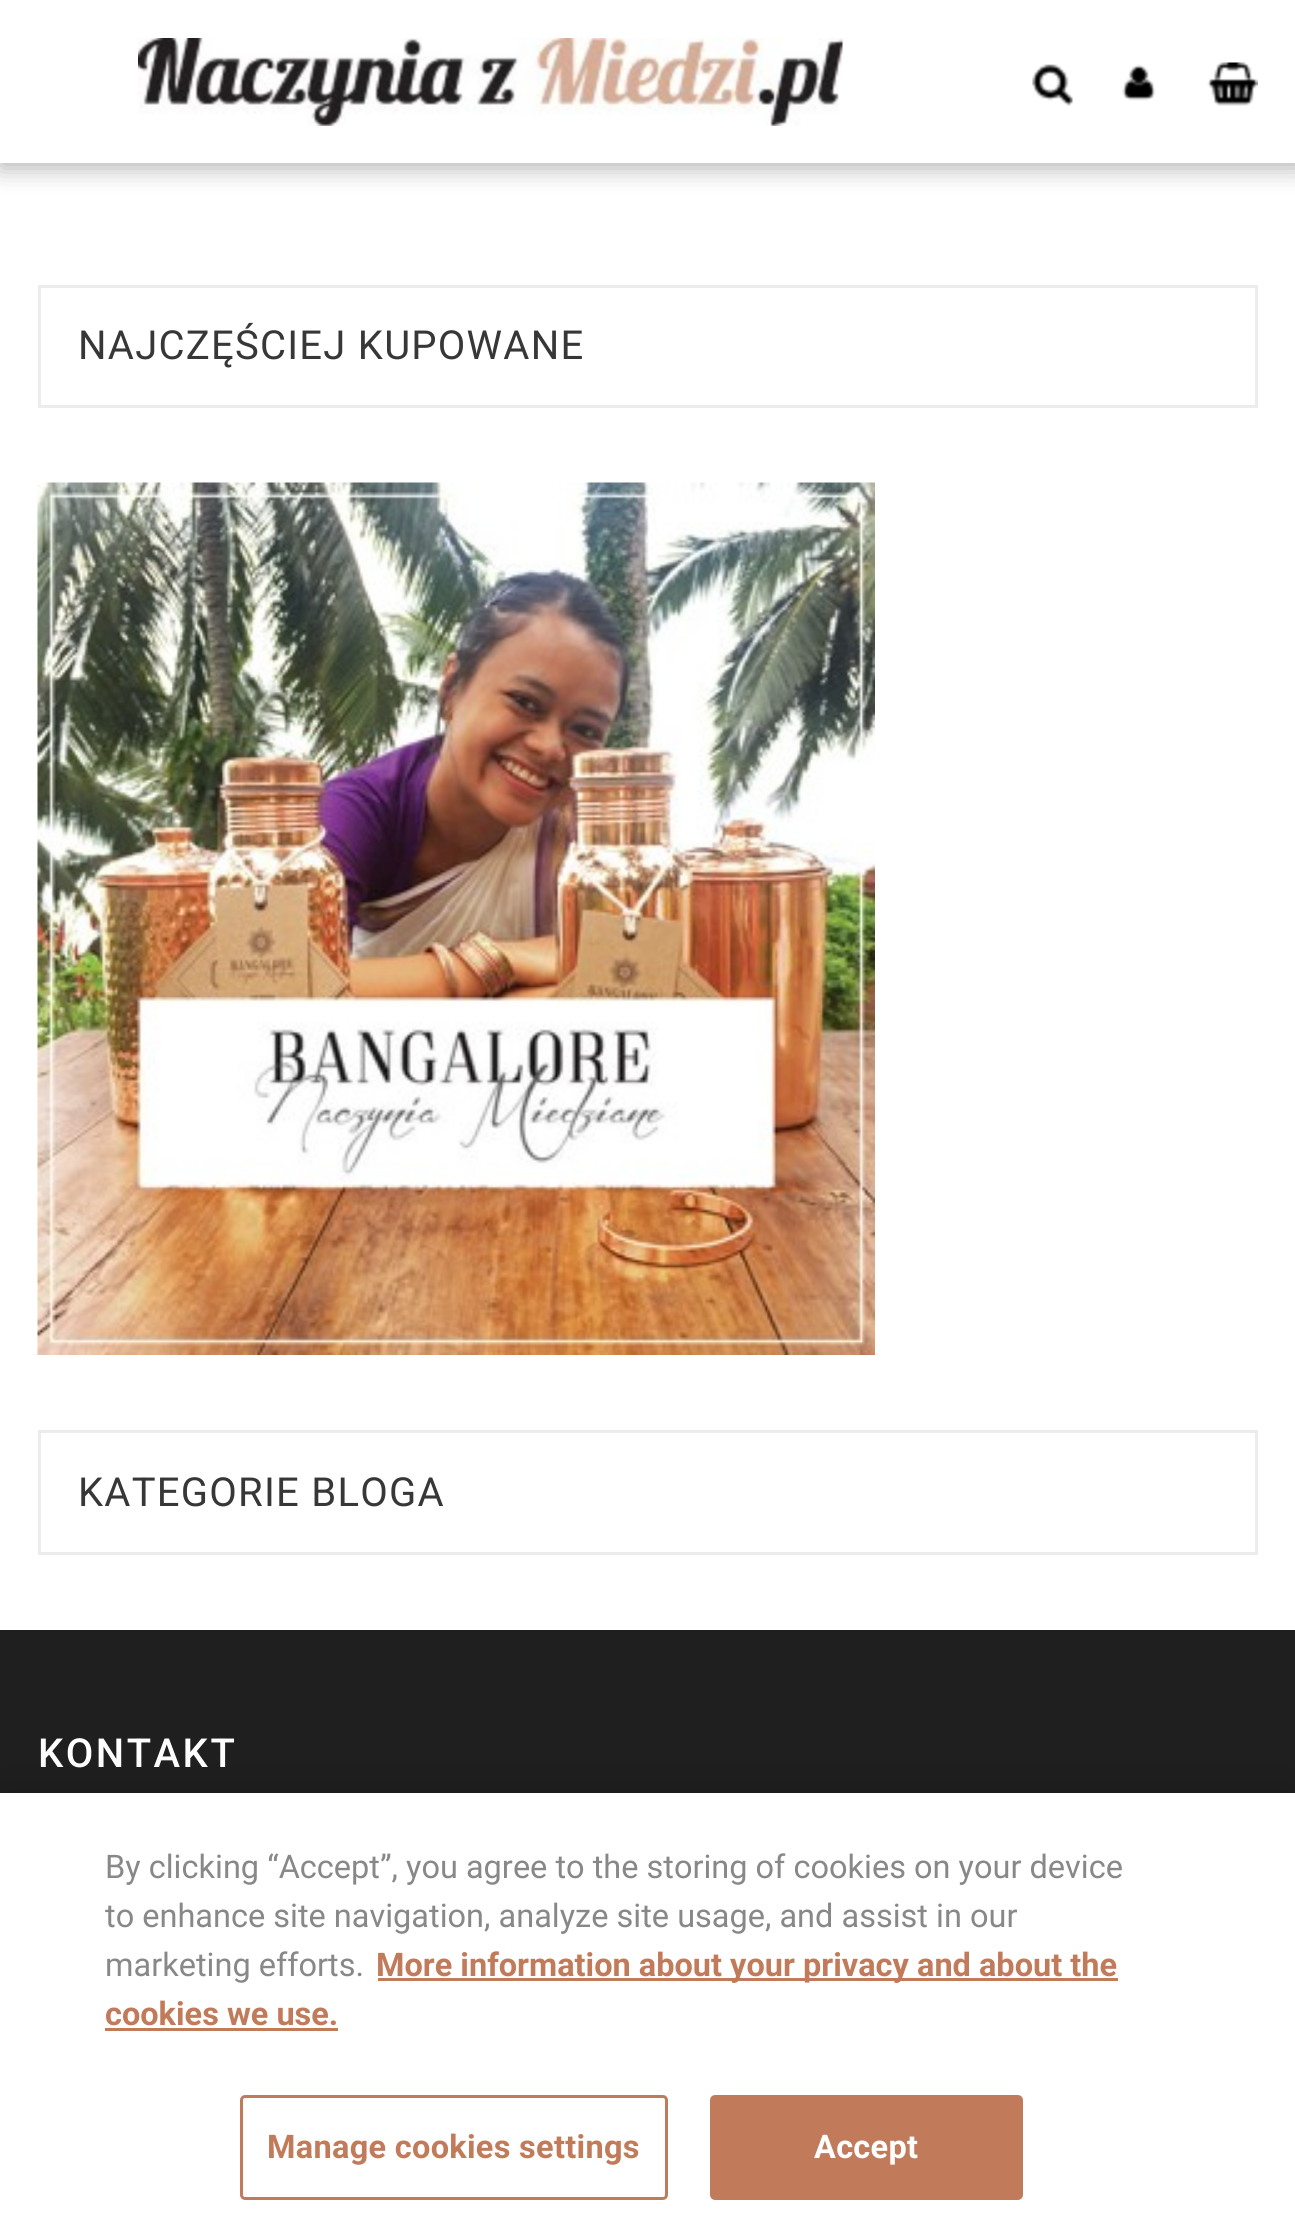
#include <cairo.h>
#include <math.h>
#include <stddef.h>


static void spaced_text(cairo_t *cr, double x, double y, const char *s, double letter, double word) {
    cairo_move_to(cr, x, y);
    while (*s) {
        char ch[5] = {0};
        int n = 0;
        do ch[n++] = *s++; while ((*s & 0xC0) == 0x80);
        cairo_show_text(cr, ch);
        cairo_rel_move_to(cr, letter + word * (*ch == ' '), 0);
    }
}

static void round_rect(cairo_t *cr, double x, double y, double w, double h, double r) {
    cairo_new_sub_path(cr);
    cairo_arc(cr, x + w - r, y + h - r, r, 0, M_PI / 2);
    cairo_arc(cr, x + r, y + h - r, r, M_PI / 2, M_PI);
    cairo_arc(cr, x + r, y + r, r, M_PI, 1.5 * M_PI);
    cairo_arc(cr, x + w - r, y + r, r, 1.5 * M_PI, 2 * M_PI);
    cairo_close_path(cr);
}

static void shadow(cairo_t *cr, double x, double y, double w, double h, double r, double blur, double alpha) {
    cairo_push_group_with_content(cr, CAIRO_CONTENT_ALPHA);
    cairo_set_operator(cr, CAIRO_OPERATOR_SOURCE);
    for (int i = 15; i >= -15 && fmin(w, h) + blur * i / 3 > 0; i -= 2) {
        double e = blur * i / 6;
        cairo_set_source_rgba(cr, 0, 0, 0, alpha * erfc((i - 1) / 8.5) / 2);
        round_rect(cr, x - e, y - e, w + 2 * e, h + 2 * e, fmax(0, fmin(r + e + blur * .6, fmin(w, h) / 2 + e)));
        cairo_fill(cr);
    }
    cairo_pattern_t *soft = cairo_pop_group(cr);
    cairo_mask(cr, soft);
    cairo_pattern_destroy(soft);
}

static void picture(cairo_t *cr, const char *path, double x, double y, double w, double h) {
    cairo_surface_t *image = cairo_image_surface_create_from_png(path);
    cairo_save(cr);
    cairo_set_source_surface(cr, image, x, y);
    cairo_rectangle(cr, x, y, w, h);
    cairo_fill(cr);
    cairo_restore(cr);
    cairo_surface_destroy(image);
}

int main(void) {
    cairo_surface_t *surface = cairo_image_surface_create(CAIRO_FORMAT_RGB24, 1295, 2238);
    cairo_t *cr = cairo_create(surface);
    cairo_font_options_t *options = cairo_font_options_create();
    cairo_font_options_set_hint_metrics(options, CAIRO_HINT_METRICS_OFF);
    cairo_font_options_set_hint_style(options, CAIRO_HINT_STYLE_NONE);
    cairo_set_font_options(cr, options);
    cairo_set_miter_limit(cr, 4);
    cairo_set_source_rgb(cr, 1, 1, 1);
    cairo_paint(cr);
    cairo_set_source_rgb(cr, 0, 0, 0);
    shadow(cr, 0, 0, 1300, 168, 0, 12.5, 0.3);
    cairo_set_source_rgb(cr, 1, 1, 1);
    cairo_rectangle(cr, 0, 0, 1295, 163);
    cairo_fill(cr);
    picture(cr, "img1.png", 138, 38, 705, 88);
    picture(cr, "img2.png", 1032, 64, 41, 42);
    picture(cr, "img3.png", 1122, 64, 34, 37);
    picture(cr, "img4.png", 1207, 62, 51, 44);
    cairo_rectangle(cr, 39.5, 286.5, 1217, 120);
    cairo_set_source_rgb(cr, 0.922, 0.922, 0.922);
    cairo_set_line_width(cr, 3);
    cairo_stroke(cr);
    cairo_select_font_face(cr, "Roboto", CAIRO_FONT_SLANT_NORMAL, CAIRO_FONT_WEIGHT_NORMAL);
    cairo_set_font_size(cr, 40);
    cairo_set_source_rgb(cr, 0.216, 0.216, 0.216);
    spaced_text(cr, 78, 359, "NAJCZĘŚCIEJ KUPOWANE", 1.25, 0);
    picture(cr, "img5.png", 37, 482, 838, 873);
    cairo_rectangle(cr, 39.5, 1431.5, 1217, 122);
    cairo_set_source_rgb(cr, 0.922, 0.922, 0.922);
    cairo_stroke(cr);
    cairo_set_source_rgb(cr, 0.216, 0.216, 0.216);
    spaced_text(cr, 78, 1506, "KATEGORIE BLOGA", 1.25, 0);
    cairo_set_source_rgb(cr, 0.122, 0.122, 0.122);
    cairo_rectangle(cr, 0, 1630, 1295, 163);
    cairo_fill(cr);
    cairo_select_font_face(cr, "Roboto Medium", CAIRO_FONT_SLANT_NORMAL, CAIRO_FONT_WEIGHT_NORMAL);
    cairo_set_source_rgb(cr, 1, 1, 1);
    spaced_text(cr, 38, 1767, "KONTAKT", 2.5, 0);
    cairo_set_source_rgb(cr, 0, 0, 0);
    shadow(cr, 0, 1793, 1295, 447, 0, 22.5, 0.2);
    cairo_set_source_rgb(cr, 1, 1, 1);
    cairo_rectangle(cr, 0, 1793, 1295, 445);
    cairo_fill(cr);
    cairo_select_font_face(cr, "Roboto", CAIRO_FONT_SLANT_NORMAL, CAIRO_FONT_WEIGHT_NORMAL);
    cairo_set_font_size(cr, 32.5);
    cairo_set_source_rgb(cr, 0.533, 0.533, 0.533);
    cairo_move_to(cr, 105, 1878);
    cairo_show_text(cr, "By clicking “Accept”, you agree to the storing of cookies on your device");
    cairo_move_to(cr, 105, 1927);
    cairo_show_text(cr, "to enhance site navigation, analyze site usage, and assist in our");
    cairo_move_to(cr, 105, 1976);
    cairo_show_text(cr, "marketing efforts.");
    cairo_set_source_rgb(cr, 0.757, 0.482, 0.357);
    cairo_rectangle(cr, 378, 1978, 740, 3);
    cairo_fill(cr);
    cairo_select_font_face(cr, "Roboto", CAIRO_FONT_SLANT_NORMAL, CAIRO_FONT_WEIGHT_BOLD);
    cairo_move_to(cr, 376, 1976);
    cairo_show_text(cr, "More information about your privacy and about the");
    cairo_move_to(cr, 105, 2025);
    cairo_show_text(cr, "cookies we use.");
    cairo_rectangle(cr, 105, 2028, 233, 3);
    cairo_fill(cr);
    round_rect(cr, 241.5, 2096.5, 425, 102, 3.5);
    cairo_stroke(cr);
    spaced_text(cr, 267, 2158, "Manage cookies settings", 0.3, 0);
    round_rect(cr, 711.5, 2096.5, 310, 102, 3.5);
    cairo_fill_preserve(cr);
    cairo_stroke(cr);
    cairo_set_source_rgb(cr, 1, 1, 1);
    spaced_text(cr, 814, 2158, "Accept", 0.3, 0);
    cairo_surface_write_to_png(surface, "page.png");
    cairo_font_options_destroy(options);
    cairo_destroy(cr);
    cairo_surface_destroy(surface);
    return 0;
}
